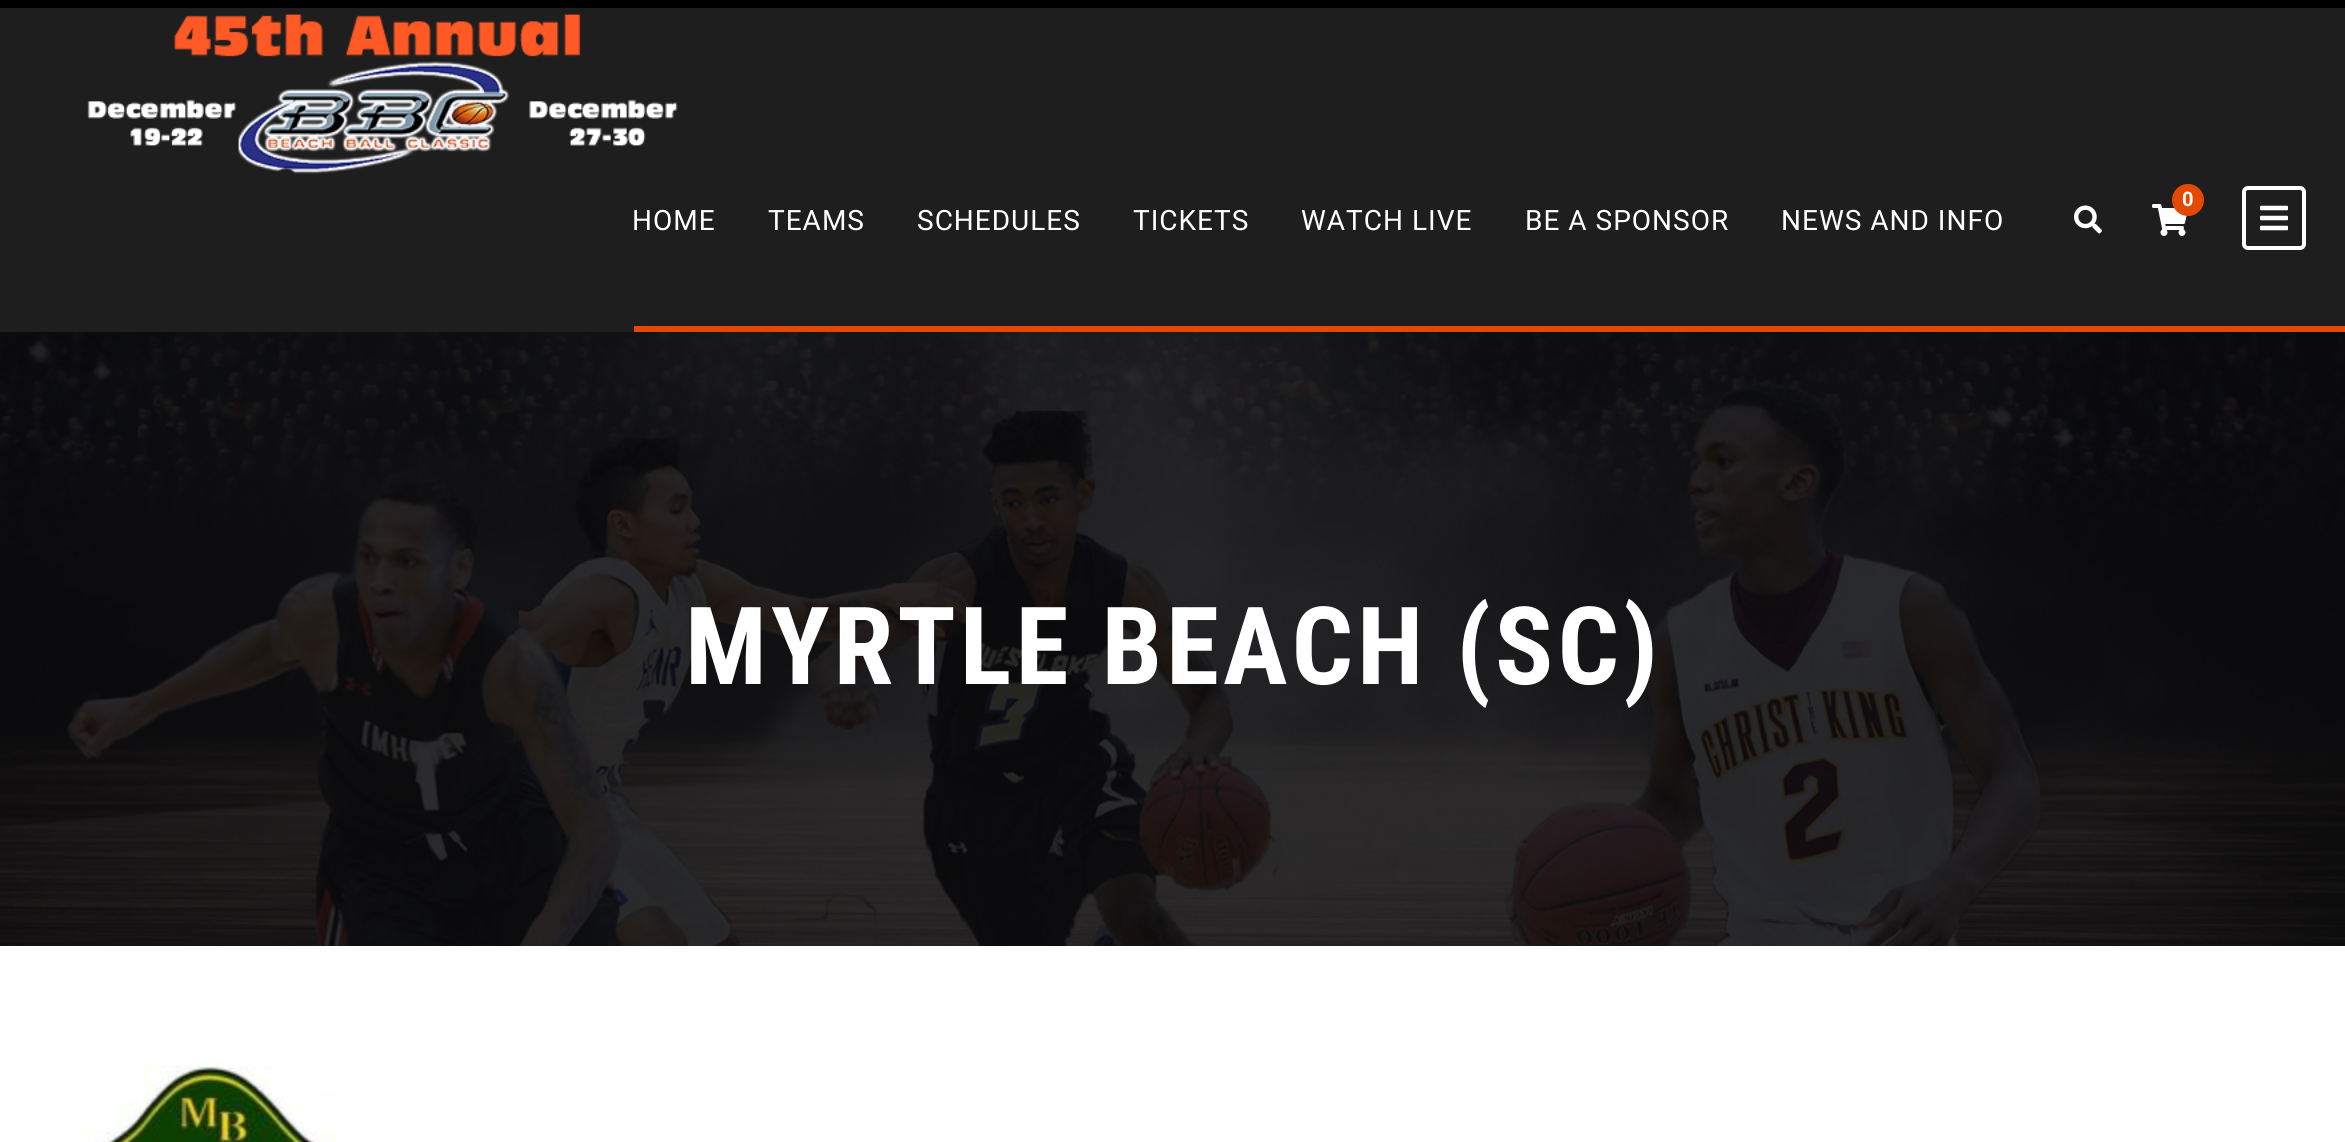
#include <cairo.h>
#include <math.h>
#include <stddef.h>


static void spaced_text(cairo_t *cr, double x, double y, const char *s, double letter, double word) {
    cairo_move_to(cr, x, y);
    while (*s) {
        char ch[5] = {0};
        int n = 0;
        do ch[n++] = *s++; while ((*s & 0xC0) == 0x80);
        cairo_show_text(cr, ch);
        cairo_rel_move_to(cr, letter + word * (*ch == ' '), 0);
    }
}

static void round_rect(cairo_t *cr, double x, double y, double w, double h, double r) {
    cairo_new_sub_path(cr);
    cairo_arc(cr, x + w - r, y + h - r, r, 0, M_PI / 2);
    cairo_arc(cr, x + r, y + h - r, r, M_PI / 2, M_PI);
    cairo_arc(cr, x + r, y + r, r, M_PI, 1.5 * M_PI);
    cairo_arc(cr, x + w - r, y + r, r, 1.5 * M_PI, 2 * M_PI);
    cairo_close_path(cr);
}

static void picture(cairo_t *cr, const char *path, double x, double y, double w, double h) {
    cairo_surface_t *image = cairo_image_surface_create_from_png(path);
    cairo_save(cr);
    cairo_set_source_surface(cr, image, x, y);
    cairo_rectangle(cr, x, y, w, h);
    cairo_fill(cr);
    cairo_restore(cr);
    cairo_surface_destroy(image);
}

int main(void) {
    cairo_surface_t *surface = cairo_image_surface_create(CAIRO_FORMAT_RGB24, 2345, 1142);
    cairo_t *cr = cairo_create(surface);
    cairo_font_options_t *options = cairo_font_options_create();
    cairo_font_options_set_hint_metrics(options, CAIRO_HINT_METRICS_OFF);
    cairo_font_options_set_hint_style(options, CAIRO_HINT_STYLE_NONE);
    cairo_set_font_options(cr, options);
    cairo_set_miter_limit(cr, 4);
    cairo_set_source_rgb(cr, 1, 1, 1);
    cairo_paint(cr);
    cairo_set_source_rgb(cr, 0, 0, 0);
    cairo_rectangle(cr, 0, 0, 2345, 8);
    cairo_fill(cr);
    cairo_set_source_rgb(cr, 0.118, 0.118, 0.118);
    cairo_rectangle(cr, 0, 8, 2345, 324);
    cairo_fill(cr);
    picture(cr, "img1.png", 87, 14, 591, 160);
    picture(cr, "img2.png", 2152, 204, 35, 32);
    cairo_set_source_rgb(cr, 0.894, 0.286, 0);
    cairo_arc(cr, 2188, 200, 16, 0, 2 * M_PI);
    cairo_fill(cr);
    cairo_select_font_face(cr, "Roboto", CAIRO_FONT_SLANT_NORMAL, CAIRO_FONT_WEIGHT_BOLD);
    cairo_set_font_size(cr, 20);
    cairo_set_source_rgb(cr, 1, 1, 1);
    cairo_move_to(cr, 2182, 206);
    cairo_show_text(cr, "0");
    round_rect(cr, 2244, 188, 60, 60, 4);
    cairo_set_line_width(cr, 4);
    cairo_stroke(cr);
    picture(cr, "img3.png", 2260, 205, 28, 26);
    picture(cr, "img4.png", 2074, 205, 28, 29);
    cairo_select_font_face(cr, "Roboto", CAIRO_FONT_SLANT_NORMAL, CAIRO_FONT_WEIGHT_NORMAL);
    cairo_set_font_size(cr, 28);
    spaced_text(cr, 632, 230, "HOME", 1, 0);
    spaced_text(cr, 768, 230, "TEAMS", 1, 0);
    spaced_text(cr, 917, 230, "SCHEDULES", 1, 0);
    spaced_text(cr, 1133, 230, "TICKETS", 1, 0);
    spaced_text(cr, 1301, 230, "WATCH LIVE", 1, 0);
    spaced_text(cr, 1525, 230, "BE A SPONSOR", 1, 0);
    spaced_text(cr, 1781, 230, "NEWS AND INFO", 1, 0);
    cairo_set_source_rgb(cr, 0.894, 0.286, 0);
    cairo_rectangle(cr, 634, 326, 1711, 6);
    cairo_fill(cr);
    picture(cr, "img5.png", 0, 332, 2345, 614);
    cairo_select_font_face(cr, "Roboto Condensed", CAIRO_FONT_SLANT_NORMAL, CAIRO_FONT_WEIGHT_BOLD);
    cairo_set_font_size(cr, 108);
    cairo_set_source_rgb(cr, 1, 1, 1);
    spaced_text(cr, 685, 684, "MYRTLE BEACH (SC)", 4, 0);
    picture(cr, "img6.png", 82, 1066, 254, 76);
    cairo_surface_write_to_png(surface, "page.png");
    cairo_font_options_destroy(options);
    cairo_destroy(cr);
    cairo_surface_destroy(surface);
    return 0;
}
